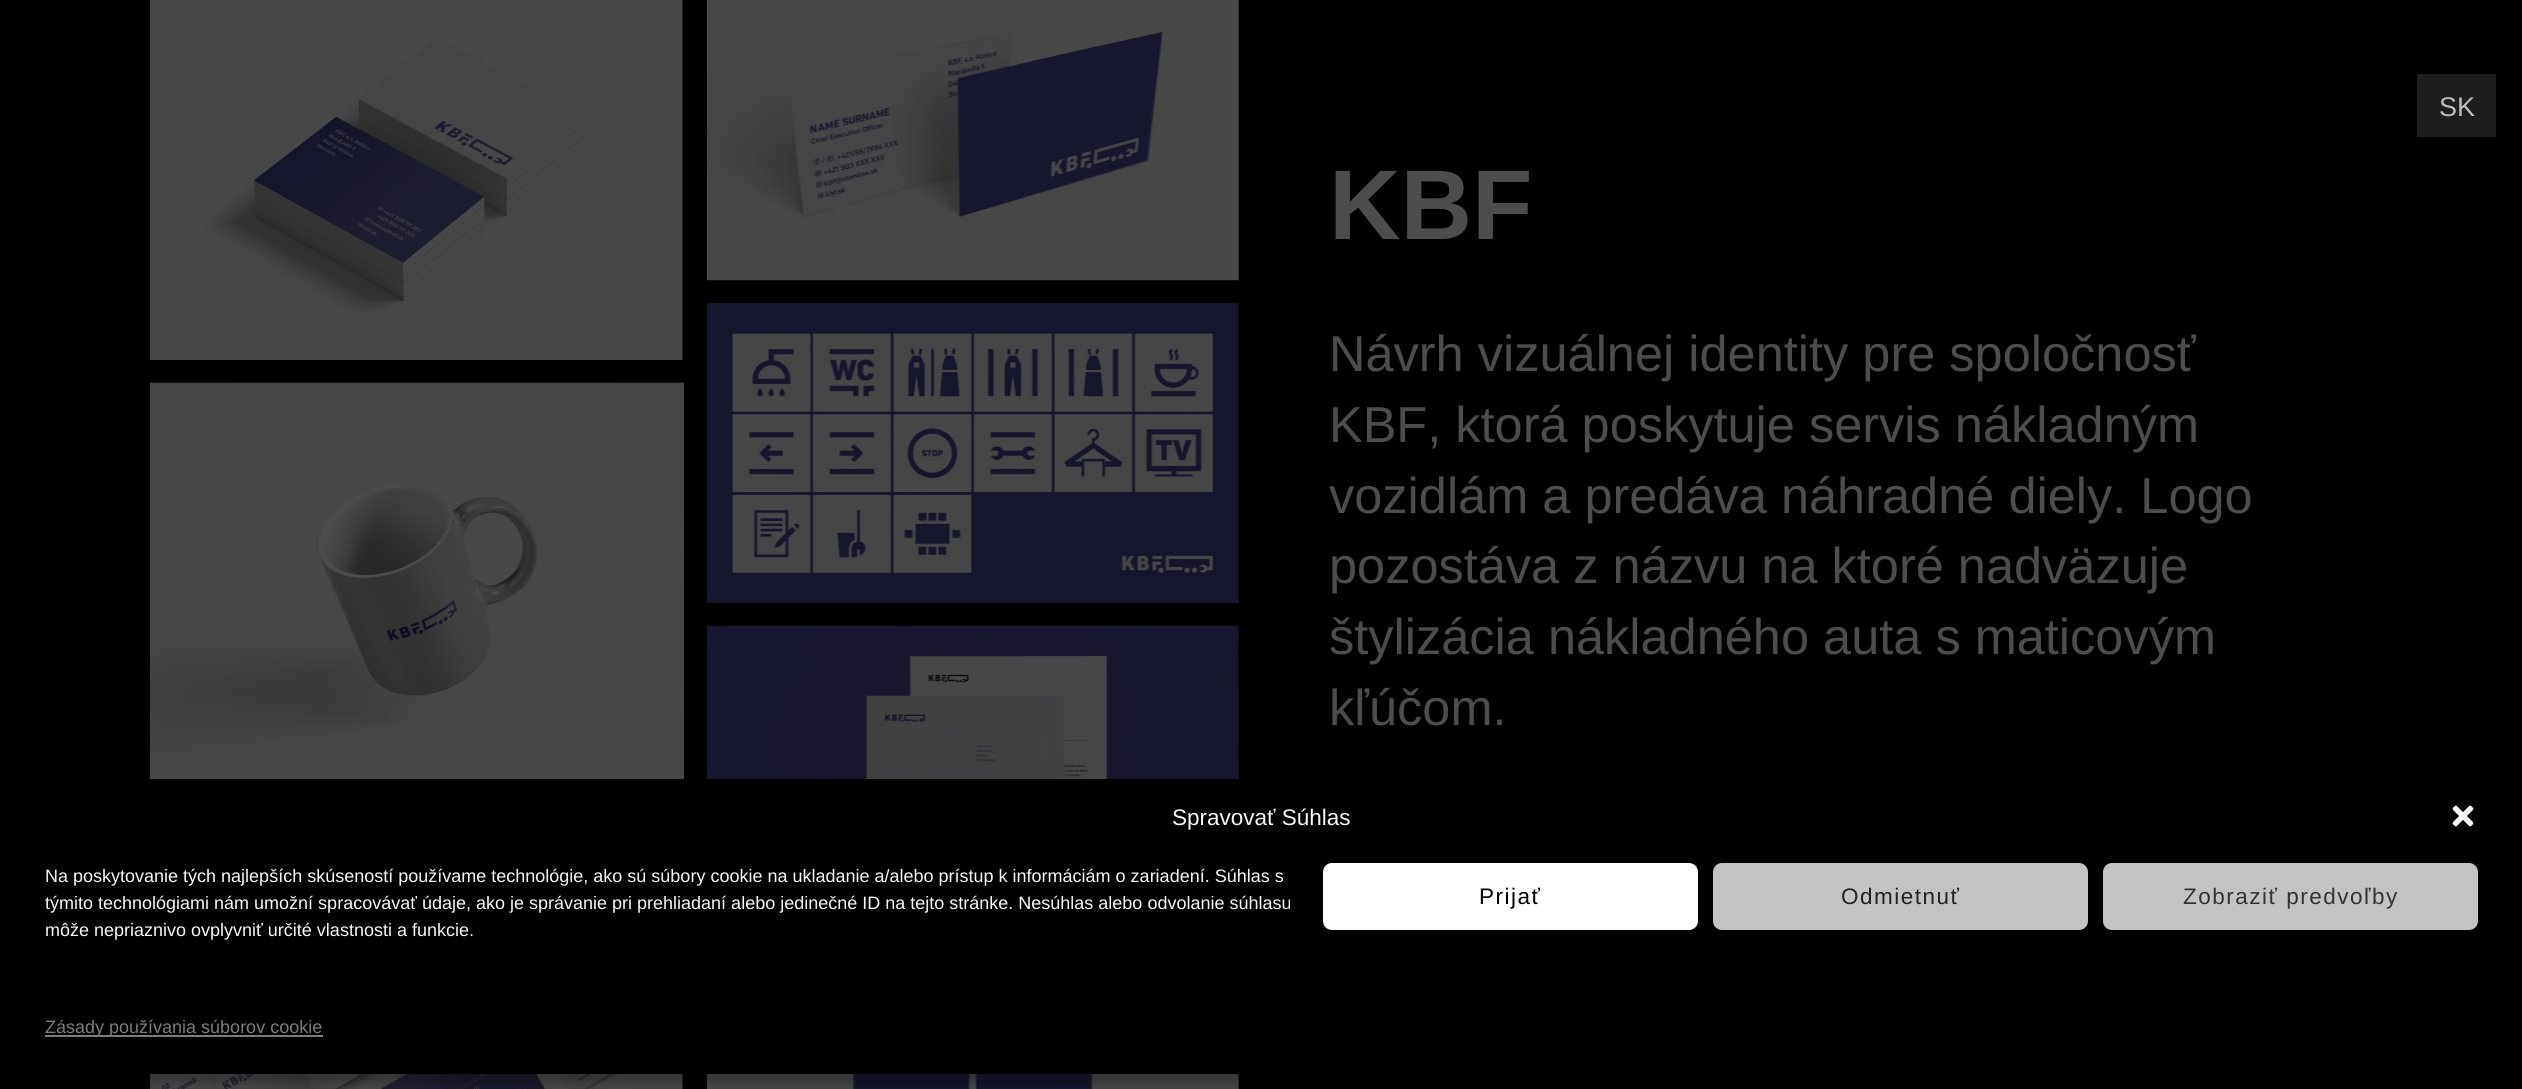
#include <cairo.h>
#include <math.h>
#include <stddef.h>


static void spaced_text(cairo_t *cr, double x, double y, const char *s, double letter, double word) {
    cairo_move_to(cr, x, y);
    while (*s) {
        char ch[5] = {0};
        int n = 0;
        do ch[n++] = *s++; while ((*s & 0xC0) == 0x80);
        cairo_show_text(cr, ch);
        cairo_rel_move_to(cr, letter + word * (*ch == ' '), 0);
    }
}

static void round_rect(cairo_t *cr, double x, double y, double w, double h, double r) {
    cairo_new_sub_path(cr);
    cairo_arc(cr, x + w - r, y + h - r, r, 0, M_PI / 2);
    cairo_arc(cr, x + r, y + h - r, r, M_PI / 2, M_PI);
    cairo_arc(cr, x + r, y + r, r, M_PI, 1.5 * M_PI);
    cairo_arc(cr, x + w - r, y + r, r, 1.5 * M_PI, 2 * M_PI);
    cairo_close_path(cr);
}

static void shadow(cairo_t *cr, double x, double y, double w, double h, double r, double blur, double alpha) {
    cairo_push_group_with_content(cr, CAIRO_CONTENT_ALPHA);
    cairo_set_operator(cr, CAIRO_OPERATOR_SOURCE);
    for (int i = 15; i >= -15 && fmin(w, h) + blur * i / 3 > 0; i -= 2) {
        double e = blur * i / 6;
        cairo_set_source_rgba(cr, 0, 0, 0, alpha * erfc((i - 1) / 8.5) / 2);
        round_rect(cr, x - e, y - e, w + 2 * e, h + 2 * e, fmax(0, fmin(r + e + blur * .6, fmin(w, h) / 2 + e)));
        cairo_fill(cr);
    }
    cairo_pattern_t *soft = cairo_pop_group(cr);
    cairo_mask(cr, soft);
    cairo_pattern_destroy(soft);
}

static void picture(cairo_t *cr, const char *path, double x, double y, double w, double h) {
    cairo_surface_t *image = cairo_image_surface_create_from_png(path);
    cairo_save(cr);
    cairo_set_source_surface(cr, image, x, y);
    cairo_rectangle(cr, x, y, w, h);
    cairo_fill(cr);
    cairo_restore(cr);
    cairo_surface_destroy(image);
}

int main(void) {
    cairo_surface_t *surface = cairo_image_surface_create(CAIRO_FORMAT_RGB24, 2522, 1089);
    cairo_t *cr = cairo_create(surface);
    cairo_font_options_t *options = cairo_font_options_create();
    cairo_font_options_set_hint_metrics(options, CAIRO_HINT_METRICS_OFF);
    cairo_font_options_set_hint_style(options, CAIRO_HINT_STYLE_NONE);
    cairo_set_font_options(cr, options);
    cairo_set_miter_limit(cr, 4);
    cairo_set_source_rgb(cr, 0, 0, 0);
    cairo_paint(cr);
    cairo_set_source_rgb(cr, 0.118, 0.118, 0.118);
    cairo_rectangle(cr, 2417, 74, 79, 63);
    cairo_fill(cr);
    cairo_select_font_face(cr, "Liberation Sans", CAIRO_FONT_SLANT_NORMAL, CAIRO_FONT_WEIGHT_NORMAL);
    cairo_set_font_size(cr, 27);
    cairo_set_source_rgb(cr, 0.741, 0.741, 0.741);
    cairo_move_to(cr, 2439, 116);
    cairo_show_text(cr, "SK");
    picture(cr, "img1.png", 150, 0, 533, 360);
    picture(cr, "img2.png", 707, 0, 532, 281);
    picture(cr, "img3.png", 150, 382, 534, 397);
    picture(cr, "img4.png", 707, 303, 532, 300);
    picture(cr, "img5.png", 707, 625, 532, 154);
    picture(cr, "img6.png", 150, 1074, 533, 15);
    picture(cr, "img7.png", 707, 1074, 532, 15);
    cairo_select_font_face(cr, "Liberation Sans", CAIRO_FONT_SLANT_NORMAL, CAIRO_FONT_WEIGHT_BOLD);
    cairo_set_font_size(cr, 99);
    cairo_set_source_rgb(cr, 0.302, 0.302, 0.302);
    cairo_move_to(cr, 1329, 239);
    cairo_show_text(cr, "KBF");
    cairo_select_font_face(cr, "Liberation Sans", CAIRO_FONT_SLANT_NORMAL, CAIRO_FONT_WEIGHT_NORMAL);
    cairo_set_font_size(cr, 50.5);
    cairo_move_to(cr, 1329, 371);
    cairo_show_text(cr, "Návrh vizuálnej identity pre spoločnosť");
    cairo_move_to(cr, 1329, 442);
    cairo_show_text(cr, "KBF, ktorá poskytuje servis nákladným");
    cairo_move_to(cr, 1329, 513);
    cairo_show_text(cr, "vozidlám a predáva náhradné diely. Logo");
    cairo_move_to(cr, 1329, 583);
    cairo_show_text(cr, "pozostáva z názvu na ktoré nadväzuje");
    cairo_move_to(cr, 1329, 654);
    cairo_show_text(cr, "štylizácia nákladného auta s maticovým");
    cairo_move_to(cr, 1329, 725);
    cairo_show_text(cr, "kľúčom.");
    cairo_set_source_rgb(cr, 0, 0, 0);
    shadow(cr, 15, 788, 2493, 295, 15, 4.5, 0.23);
    cairo_set_font_size(cr, 22.5);
    cairo_set_source_rgb(cr, 0.969, 0.969, 0.969);
    cairo_move_to(cr, 1172, 825);
    cairo_show_text(cr, "Spravovať Súhlas");
    picture(cr, "img8.png", 2452, 805, 22, 22);
    cairo_set_font_size(cr, 18);
    cairo_move_to(cr, 45, 882);
    cairo_show_text(cr, "Na poskytovanie tých najlepších skúseností používame technológie, ako sú súbory cookie na ukladanie a/alebo prístup k informáciám o zariadení. Súhlas s");
    cairo_move_to(cr, 45, 909);
    cairo_show_text(cr, "týmito technológiami nám umožní spracovávať údaje, ako je správanie pri prehliadaní alebo jedinečné ID na tejto stránke. Nesúhlas alebo odvolanie súhlasu");
    cairo_move_to(cr, 45, 936);
    cairo_show_text(cr, "môže nepriaznivo ovplyvniť určité vlastnosti a funkcie.");
    cairo_set_source_rgb(cr, 1, 1, 1);
    round_rect(cr, 1324, 864, 373, 65, 8);
    cairo_fill_preserve(cr);
    cairo_stroke(cr);
    cairo_set_font_size(cr, 22.5);
    cairo_set_source_rgb(cr, 0, 0, 0);
    spaced_text(cr, 1479, 904, "Prijať", 1.5, 0);
    cairo_set_source_rgb(cr, 0.769, 0.765, 0.765);
    round_rect(cr, 1714, 864, 373, 65, 8);
    cairo_fill_preserve(cr);
    cairo_stroke(cr);
    cairo_set_source_rgb(cr, 0.133, 0.133, 0.133);
    spaced_text(cr, 1841, 904, "Odmietnuť", 1.5, 0);
    cairo_set_source_rgb(cr, 0.769, 0.765, 0.765);
    round_rect(cr, 2104, 864, 373, 65, 8);
    cairo_fill_preserve(cr);
    cairo_stroke(cr);
    cairo_set_source_rgb(cr, 0.2, 0.2, 0.2);
    spaced_text(cr, 2183, 904, "Zobraziť predvoľby", 1.5, 0);
    cairo_set_source_rgb(cr, 0.49, 0.49, 0.49);
    cairo_rectangle(cr, 45, 1035, 278, 2);
    cairo_fill(cr);
    cairo_set_font_size(cr, 18);
    cairo_move_to(cr, 45, 1033);
    cairo_show_text(cr, "Zásady používania súborov cookie");
    cairo_surface_write_to_png(surface, "page.png");
    cairo_font_options_destroy(options);
    cairo_destroy(cr);
    cairo_surface_destroy(surface);
    return 0;
}
